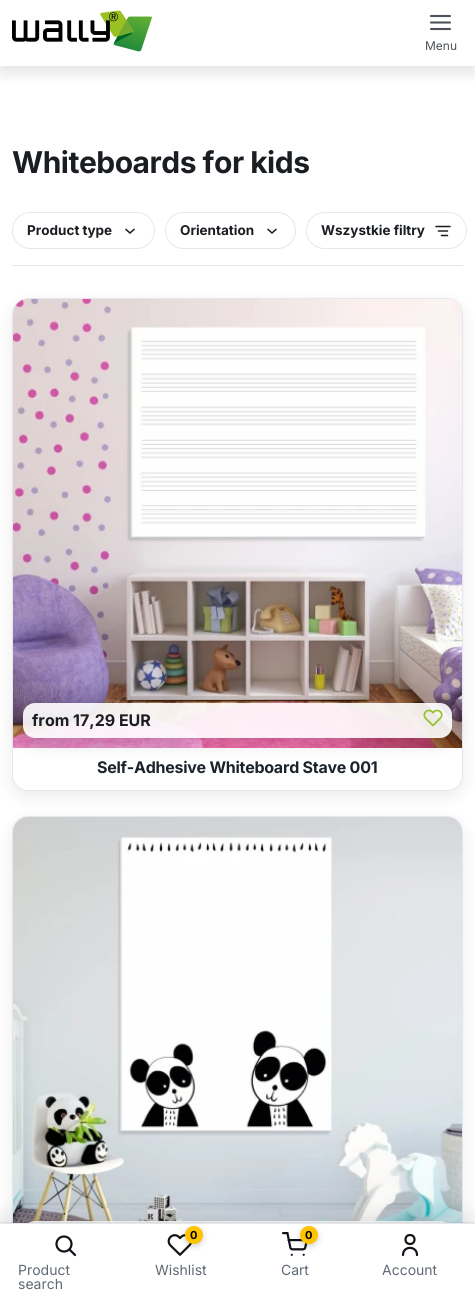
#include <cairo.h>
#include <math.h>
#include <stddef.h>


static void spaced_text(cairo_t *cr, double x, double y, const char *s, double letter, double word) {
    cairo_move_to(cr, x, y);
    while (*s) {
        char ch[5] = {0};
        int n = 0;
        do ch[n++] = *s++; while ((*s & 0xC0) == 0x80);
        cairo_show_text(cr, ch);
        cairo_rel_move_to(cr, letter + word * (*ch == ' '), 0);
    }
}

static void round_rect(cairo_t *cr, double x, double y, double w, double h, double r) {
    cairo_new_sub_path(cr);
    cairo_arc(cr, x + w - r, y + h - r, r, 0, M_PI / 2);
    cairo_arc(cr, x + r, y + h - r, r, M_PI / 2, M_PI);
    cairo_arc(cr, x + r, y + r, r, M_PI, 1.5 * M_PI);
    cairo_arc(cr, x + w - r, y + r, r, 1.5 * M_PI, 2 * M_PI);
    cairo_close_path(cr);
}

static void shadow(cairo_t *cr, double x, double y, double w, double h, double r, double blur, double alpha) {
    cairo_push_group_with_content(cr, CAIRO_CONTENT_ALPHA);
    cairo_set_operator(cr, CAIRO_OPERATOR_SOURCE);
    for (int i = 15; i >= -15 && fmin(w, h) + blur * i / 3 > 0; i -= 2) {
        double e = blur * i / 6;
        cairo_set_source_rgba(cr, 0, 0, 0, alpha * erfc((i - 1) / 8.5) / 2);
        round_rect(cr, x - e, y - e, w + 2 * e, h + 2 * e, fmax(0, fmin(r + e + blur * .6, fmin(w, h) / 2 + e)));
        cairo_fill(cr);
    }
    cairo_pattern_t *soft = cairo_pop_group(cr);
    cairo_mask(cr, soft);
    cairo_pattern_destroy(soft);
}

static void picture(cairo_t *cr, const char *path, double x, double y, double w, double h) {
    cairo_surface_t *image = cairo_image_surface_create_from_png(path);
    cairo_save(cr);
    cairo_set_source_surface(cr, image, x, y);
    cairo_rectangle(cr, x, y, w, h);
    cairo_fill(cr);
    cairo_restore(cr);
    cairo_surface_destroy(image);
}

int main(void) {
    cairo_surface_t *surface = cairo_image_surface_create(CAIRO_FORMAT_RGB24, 475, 1300);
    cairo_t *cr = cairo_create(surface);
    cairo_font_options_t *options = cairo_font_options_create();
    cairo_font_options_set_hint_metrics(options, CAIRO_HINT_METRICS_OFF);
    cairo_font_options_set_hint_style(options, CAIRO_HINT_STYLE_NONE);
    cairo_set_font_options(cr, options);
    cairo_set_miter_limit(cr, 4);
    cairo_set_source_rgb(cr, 1, 1, 1);
    cairo_paint(cr);
    cairo_save(cr);
    cairo_rectangle(cr, 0, 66, 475, 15);
    cairo_clip(cr);
    cairo_set_source_rgb(cr, 0, 0, 0);
    shadow(cr, 0, 6, 475, 66, 0, 9, 0.12);
    cairo_restore(cr);
    picture(cr, "img1.png", 12, 10, 140, 42);
    cairo_new_path(cr);
    cairo_move_to(cr, 431, 16);
    cairo_line_to(cr, 450, 16);
    cairo_move_to(cr, 431, 22.5);
    cairo_line_to(cr, 450, 22.5);
    cairo_move_to(cr, 431, 29);
    cairo_line_to(cr, 450, 29);
    cairo_set_source_rgb(cr, 0.302, 0.322, 0.361);
    cairo_set_line_width(cr, 2.1);
    cairo_set_line_cap(cr, CAIRO_LINE_CAP_ROUND);
    cairo_stroke(cr);
    cairo_select_font_face(cr, "Inter", CAIRO_FONT_SLANT_NORMAL, CAIRO_FONT_WEIGHT_NORMAL);
    cairo_set_font_size(cr, 12);
    cairo_move_to(cr, 425, 50);
    cairo_show_text(cr, "Menu");
    cairo_select_font_face(cr, "Inter", CAIRO_FONT_SLANT_NORMAL, CAIRO_FONT_WEIGHT_BOLD);
    cairo_set_font_size(cr, 30);
    cairo_set_source_rgb(cr, 0.102, 0.114, 0.129);
    spaced_text(cr, 12, 173, "Whiteboards for kids", -0.5, 0);
    cairo_set_source_rgb(cr, 0.898, 0.906, 0.922);
    cairo_rectangle(cr, 12, 265, 451, 1);
    cairo_fill(cr);
    round_rect(cr, 12.5, 212.5, 142, 36, 18);
    cairo_set_line_width(cr, 1);
    cairo_set_line_cap(cr, CAIRO_LINE_CAP_BUTT);
    cairo_stroke(cr);
    cairo_set_font_size(cr, 13.5);
    cairo_set_source_rgb(cr, 0.102, 0.114, 0.129);
    cairo_move_to(cr, 27, 235);
    cairo_show_text(cr, "Product type");
    cairo_new_path(cr);
    cairo_move_to(cr, 125.5, 229);
    cairo_line_to(cr, 130, 233);
    cairo_line_to(cr, 134.5, 229);
    cairo_set_line_width(cr, 1.5);
    cairo_stroke(cr);
    round_rect(cr, 165.5, 212.5, 130, 36, 18);
    cairo_set_source_rgb(cr, 0.898, 0.906, 0.922);
    cairo_set_line_width(cr, 1);
    cairo_stroke(cr);
    cairo_set_source_rgb(cr, 0.102, 0.114, 0.129);
    cairo_move_to(cr, 180, 235);
    cairo_show_text(cr, "Orientation");
    cairo_new_path(cr);
    cairo_move_to(cr, 267.5, 229);
    cairo_line_to(cr, 272, 233);
    cairo_line_to(cr, 276.5, 229);
    cairo_set_line_width(cr, 1.5);
    cairo_stroke(cr);
    round_rect(cr, 306.5, 212.5, 160, 36, 18);
    cairo_set_source_rgb(cr, 0.898, 0.906, 0.922);
    cairo_set_line_width(cr, 1);
    cairo_stroke(cr);
    cairo_set_source_rgb(cr, 0.102, 0.114, 0.129);
    cairo_move_to(cr, 321, 235);
    cairo_show_text(cr, "Wszystkie filtry");
    cairo_new_path(cr);
    cairo_move_to(cr, 436, 226.5);
    cairo_line_to(cr, 450, 226.5);
    cairo_move_to(cr, 438.5, 231);
    cairo_line_to(cr, 447.5, 231);
    cairo_move_to(cr, 441.5, 235.5);
    cairo_line_to(cr, 447.5, 235.5);
    cairo_set_line_width(cr, 1.5);
    cairo_set_line_cap(cr, CAIRO_LINE_CAP_ROUND);
    cairo_stroke(cr);
    cairo_set_source_rgb(cr, 0, 0, 0);
    shadow(cr, 12, 304, 451, 493, 16, 9, 0.08);
    cairo_set_source_rgb(cr, 1, 1, 1);
    round_rect(cr, 12.5, 298.5, 450, 492, 15.5);
    cairo_fill_preserve(cr);
    cairo_set_source_rgb(cr, 0.898, 0.906, 0.922);
    cairo_set_line_width(cr, 1);
    cairo_set_line_cap(cr, CAIRO_LINE_CAP_BUTT);
    cairo_stroke(cr);
    picture(cr, "img2.png", 13, 299, 449, 449);
    cairo_save(cr);
    cairo_set_fill_rule(cr, CAIRO_FILL_RULE_EVEN_ODD);
    cairo_new_path(cr);
    cairo_move_to(cr, 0, 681);
    cairo_line_to(cr, 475, 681);
    cairo_line_to(cr, 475, 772);
    cairo_line_to(cr, 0, 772);
    cairo_close_path(cr);
    cairo_move_to(cr, 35, 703);
    cairo_line_to(cr, 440, 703);
    cairo_curve_to(cr, 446.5, 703, 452, 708.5, 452, 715);
    cairo_line_to(cr, 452, 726);
    cairo_curve_to(cr, 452, 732.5, 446.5, 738, 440, 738);
    cairo_line_to(cr, 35, 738);
    cairo_curve_to(cr, 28.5, 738, 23, 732.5, 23, 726);
    cairo_line_to(cr, 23, 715);
    cairo_curve_to(cr, 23, 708.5, 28.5, 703, 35, 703);
    cairo_close_path(cr);
    cairo_clip(cr);
    cairo_set_source_rgb(cr, 0, 0, 0);
    shadow(cr, 23, 709, 429, 35, 12, 9, 0.12);
    cairo_restore(cr);
    cairo_set_source_rgba(cr, 1, 1, 1, 0.9);
    round_rect(cr, 23, 703, 429, 35, 12);
    cairo_fill(cr);
    cairo_set_font_size(cr, 16);
    cairo_set_source_rgb(cr, 0.102, 0.114, 0.129);
    cairo_move_to(cr, 32, 726);
    cairo_show_text(cr, "from 17,29 EUR");
    picture(cr, "img3.png", 423, 709, 20, 18);
    cairo_set_source_rgb(cr, 0.114, 0.137, 0.169);
    spaced_text(cr, 97, 773, "Self-Adhesive Whiteboard Stave 001", -0.25, 0);
    cairo_set_source_rgb(cr, 0, 0, 0);
    shadow(cr, 12, 822, 451, 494, 16, 9, 0.08);
    round_rect(cr, 12.5, 816.5, 450, 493, 15.5);
    cairo_set_source_rgb(cr, 0.898, 0.906, 0.922);
    cairo_stroke(cr);
    picture(cr, "img4.png", 13, 817, 449, 406);
    cairo_set_source_rgb(cr, 0, 0, 0);
    shadow(cr, 23, 1227, 429, 35, 12, 9, 0.12);
    cairo_set_source_rgba(cr, 1, 1, 1, 0.9);
    round_rect(cr, 23, 1221, 429, 35, 12);
    cairo_fill(cr);
    cairo_set_source_rgb(cr, 0, 0, 0);
    shadow(cr, 0, 1215, 475, 77, 0, 10, 0.08);
    cairo_set_source_rgba(cr, 0, 0, 0, 0.06);
    cairo_rectangle(cr, 0, 1222, 475, 1);
    cairo_fill(cr);
    cairo_set_source_rgb(cr, 1, 1, 1);
    cairo_rectangle(cr, 0, 1224, 475, 76);
    cairo_fill(cr);
    cairo_set_source_rgb(cr, 0.898, 0.906, 0.922);
    cairo_rectangle(cr, 0, 1223, 475, 1);
    cairo_fill(cr);
    cairo_arc(cr, 64, 1244, 7.5, 0, 2 * M_PI);
    cairo_set_source_rgb(cr, 0.059, 0.071, 0.09);
    cairo_set_line_width(cr, 2.2);
    cairo_stroke(cr);
    cairo_new_path(cr);
    cairo_move_to(cr, 70, 1250);
    cairo_line_to(cr, 75, 1255);
    cairo_set_line_cap(cr, CAIRO_LINE_CAP_ROUND);
    cairo_stroke(cr);
    cairo_select_font_face(cr, "Inter", CAIRO_FONT_SLANT_NORMAL, CAIRO_FONT_WEIGHT_NORMAL);
    cairo_set_font_size(cr, 14);
    cairo_set_source_rgb(cr, 0.376, 0.412, 0.459);
    cairo_move_to(cr, 18, 1275);
    cairo_show_text(cr, "Product");
    cairo_move_to(cr, 18, 1289);
    cairo_show_text(cr, "search");
    picture(cr, "img5.png", 167, 1234, 25, 22);
    cairo_set_source_rgb(cr, 0, 0, 0);
    shadow(cr, 185, 1228, 18, 18, 9, 3, 0.18);
    cairo_set_source_rgb(cr, 1, 0.765, 0);
    cairo_arc(cr, 194, 1235, 9, 0, 2 * M_PI);
    cairo_fill(cr);
    cairo_select_font_face(cr, "Inter", CAIRO_FONT_SLANT_NORMAL, CAIRO_FONT_WEIGHT_BOLD);
    cairo_set_font_size(cr, 11);
    cairo_set_source_rgb(cr, 0, 0, 0);
    cairo_move_to(cr, 190, 1239);
    cairo_show_text(cr, "0");
    cairo_select_font_face(cr, "Inter", CAIRO_FONT_SLANT_NORMAL, CAIRO_FONT_WEIGHT_NORMAL);
    cairo_set_font_size(cr, 14);
    cairo_set_source_rgb(cr, 0.376, 0.412, 0.459);
    cairo_move_to(cr, 155, 1275);
    cairo_show_text(cr, "Wishlist");
    picture(cr, "img6.png", 282, 1232, 26, 24);
    cairo_set_source_rgb(cr, 0, 0, 0);
    shadow(cr, 300, 1228, 18, 18, 9, 3, 0.18);
    cairo_set_source_rgb(cr, 1, 0.765, 0);
    cairo_arc(cr, 309, 1235, 9, 0, 2 * M_PI);
    cairo_fill(cr);
    cairo_select_font_face(cr, "Inter", CAIRO_FONT_SLANT_NORMAL, CAIRO_FONT_WEIGHT_BOLD);
    cairo_set_font_size(cr, 11);
    cairo_set_source_rgb(cr, 0, 0, 0);
    cairo_move_to(cr, 305, 1239);
    cairo_show_text(cr, "0");
    cairo_select_font_face(cr, "Inter", CAIRO_FONT_SLANT_NORMAL, CAIRO_FONT_WEIGHT_NORMAL);
    cairo_set_font_size(cr, 14);
    cairo_set_source_rgb(cr, 0.376, 0.412, 0.459);
    cairo_move_to(cr, 281, 1275);
    cairo_show_text(cr, "Cart");
    cairo_new_path(cr);
    cairo_arc(cr, 410, 1239.5, 4.5, 0, 2 * M_PI);
    cairo_set_source_rgb(cr, 0.059, 0.071, 0.09);
    cairo_set_line_cap(cr, CAIRO_LINE_CAP_BUTT);
    cairo_stroke(cr);
    cairo_new_path(cr);
    cairo_move_to(cr, 403, 1255);
    cairo_curve_to(cr, 403, 1245.5, 417, 1245.5, 417, 1255);
    cairo_set_line_cap(cr, CAIRO_LINE_CAP_ROUND);
    cairo_stroke(cr);
    cairo_set_source_rgb(cr, 0.376, 0.412, 0.459);
    cairo_move_to(cr, 382, 1275);
    cairo_show_text(cr, "Account");
    cairo_surface_write_to_png(surface, "page.png");
    cairo_font_options_destroy(options);
    cairo_destroy(cr);
    cairo_surface_destroy(surface);
    return 0;
}
